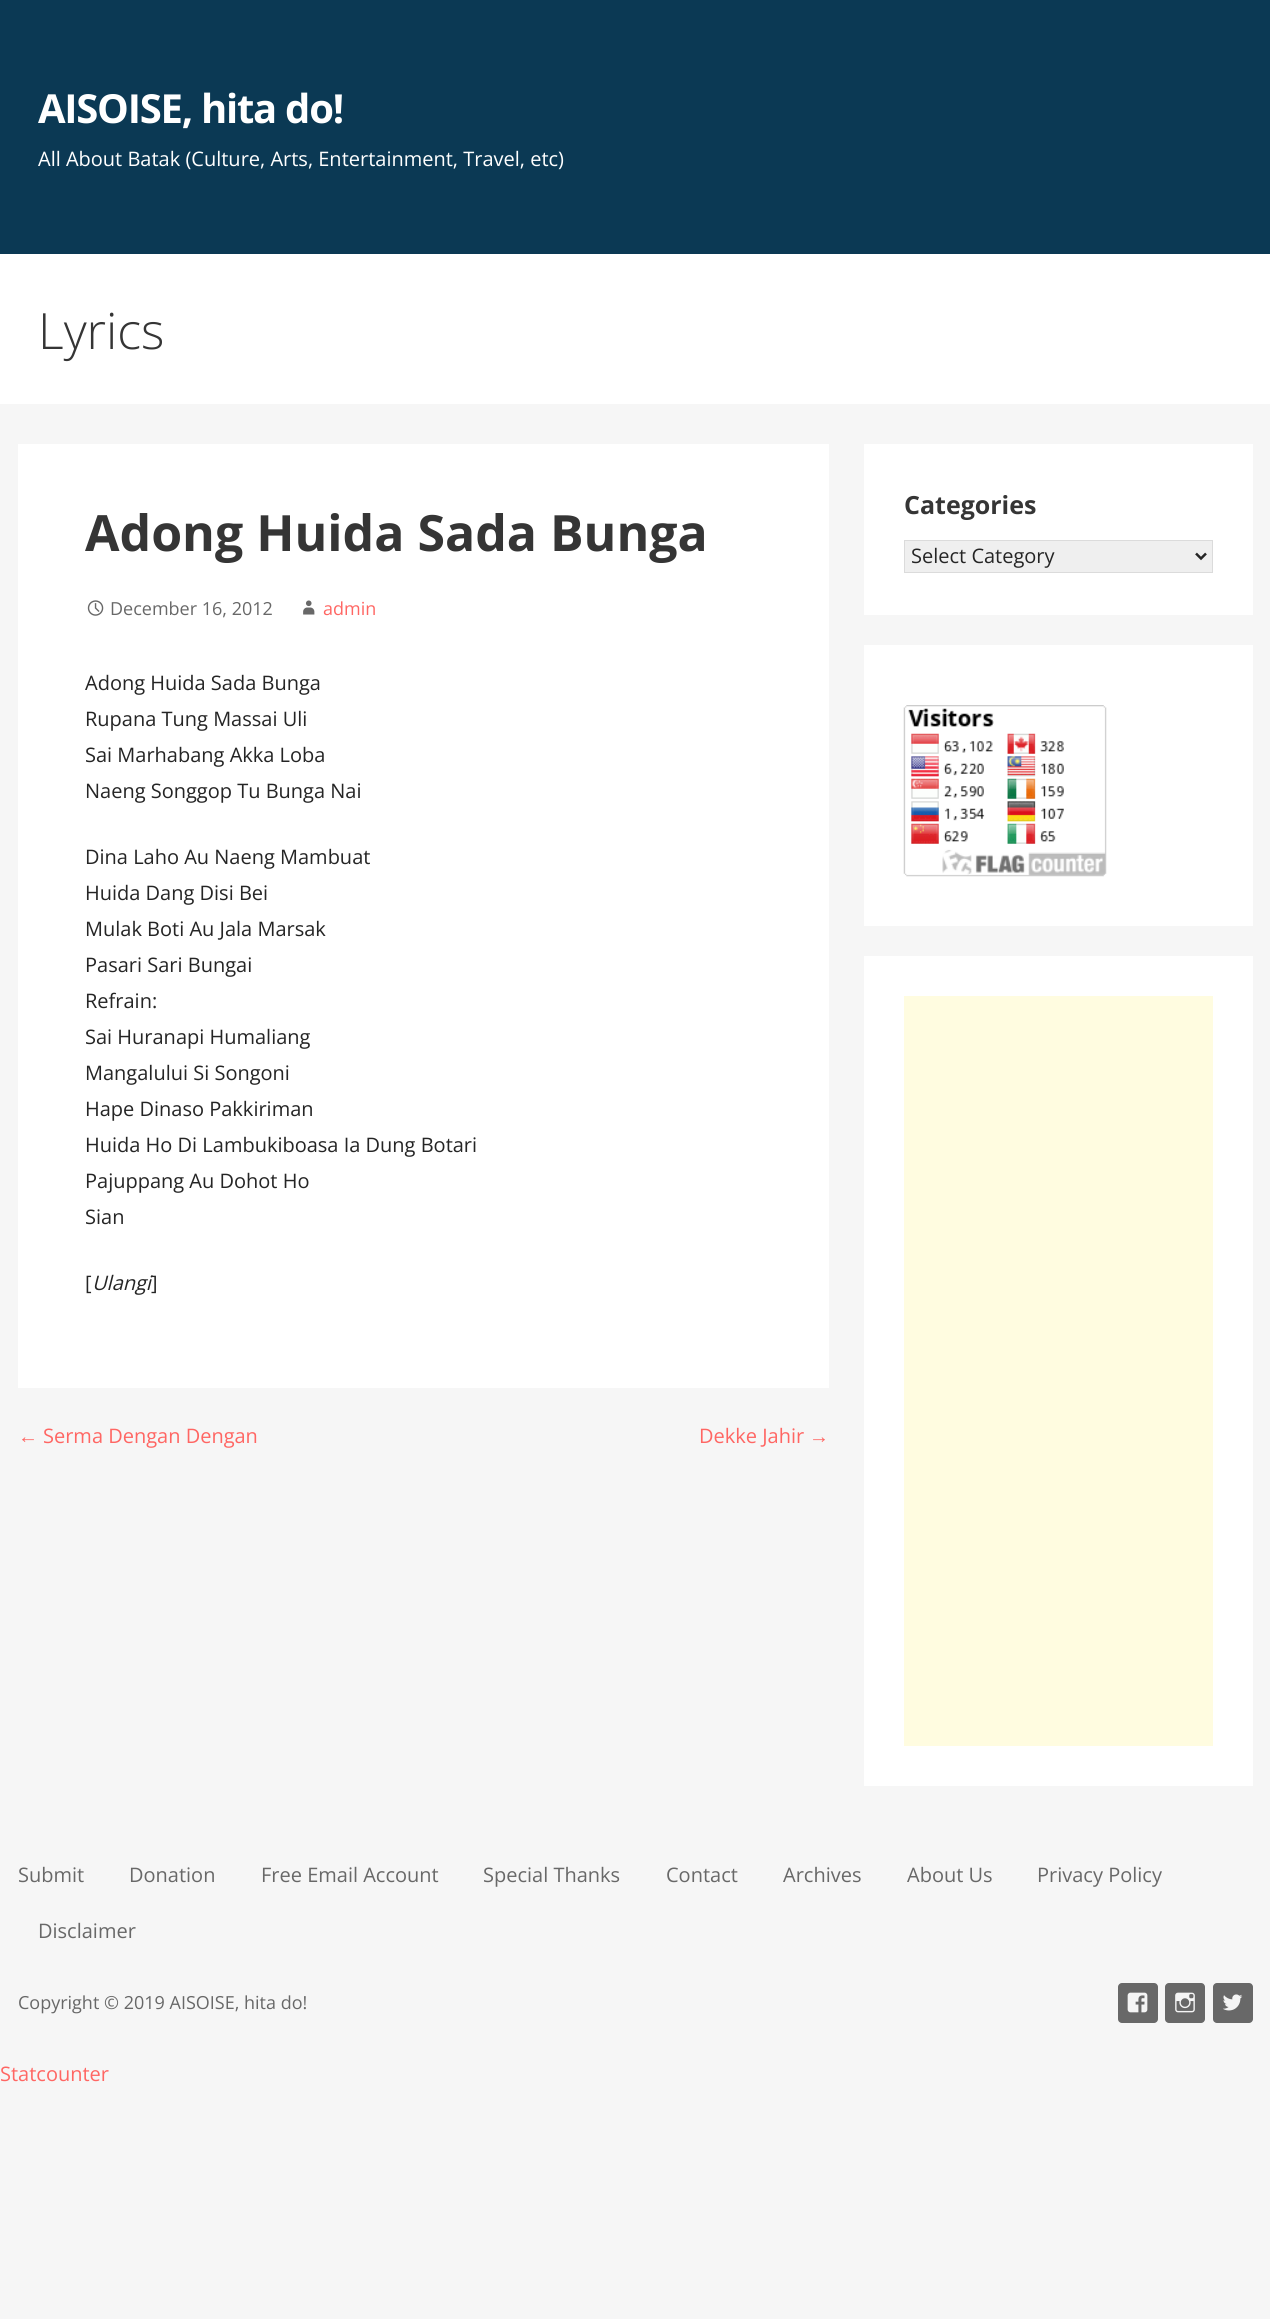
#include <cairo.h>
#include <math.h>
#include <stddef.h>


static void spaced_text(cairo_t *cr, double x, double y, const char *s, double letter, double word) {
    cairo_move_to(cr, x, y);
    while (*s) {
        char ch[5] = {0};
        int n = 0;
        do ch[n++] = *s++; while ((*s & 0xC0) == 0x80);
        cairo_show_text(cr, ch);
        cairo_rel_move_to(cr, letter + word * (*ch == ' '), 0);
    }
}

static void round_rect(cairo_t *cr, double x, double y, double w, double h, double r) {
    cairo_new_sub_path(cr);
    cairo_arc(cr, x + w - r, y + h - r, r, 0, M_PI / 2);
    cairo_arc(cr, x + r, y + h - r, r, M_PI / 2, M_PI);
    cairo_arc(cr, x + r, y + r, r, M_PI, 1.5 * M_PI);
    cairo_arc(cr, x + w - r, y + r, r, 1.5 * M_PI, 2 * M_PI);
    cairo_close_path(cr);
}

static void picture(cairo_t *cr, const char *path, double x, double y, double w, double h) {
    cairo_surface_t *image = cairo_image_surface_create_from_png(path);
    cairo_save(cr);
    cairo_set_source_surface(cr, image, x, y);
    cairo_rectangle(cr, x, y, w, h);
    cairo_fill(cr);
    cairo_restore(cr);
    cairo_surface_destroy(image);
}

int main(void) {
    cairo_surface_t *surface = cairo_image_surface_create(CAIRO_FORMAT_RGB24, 1270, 2319);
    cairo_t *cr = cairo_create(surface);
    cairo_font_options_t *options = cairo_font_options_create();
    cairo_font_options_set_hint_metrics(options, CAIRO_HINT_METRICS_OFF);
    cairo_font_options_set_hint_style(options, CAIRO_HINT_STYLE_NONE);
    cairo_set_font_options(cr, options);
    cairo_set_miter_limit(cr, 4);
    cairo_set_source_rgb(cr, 0.961, 0.961, 0.961);
    cairo_paint(cr);
    cairo_set_source_rgb(cr, 0.043, 0.224, 0.329);
    cairo_rectangle(cr, 0, 0, 1270, 254);
    cairo_fill(cr);
    cairo_select_font_face(cr, "Open Sans", CAIRO_FONT_SLANT_NORMAL, CAIRO_FONT_WEIGHT_BOLD);
    cairo_set_font_size(cr, 40);
    cairo_set_source_rgb(cr, 1, 1, 1);
    spaced_text(cr, 38, 123, "AISOISE, hita do!", -1.25, 0);
    cairo_select_font_face(cr, "Open Sans", CAIRO_FONT_SLANT_NORMAL, CAIRO_FONT_WEIGHT_NORMAL);
    cairo_set_font_size(cr, 20);
    cairo_move_to(cr, 38, 166);
    cairo_show_text(cr, "All About Batak (Culture, Arts, Entertainment, Travel, etc)");
    cairo_rectangle(cr, 0, 254, 1270, 150);
    cairo_fill(cr);
    cairo_select_font_face(cr, "Open Sans Light", CAIRO_FONT_SLANT_NORMAL, CAIRO_FONT_WEIGHT_NORMAL);
    cairo_set_font_size(cr, 50);
    cairo_set_source_rgb(cr, 0.208, 0.208, 0.208);
    cairo_move_to(cr, 38, 349);
    cairo_show_text(cr, "Lyrics");
    cairo_set_source_rgb(cr, 1, 1, 1);
    cairo_rectangle(cr, 18, 444, 811, 944);
    cairo_fill(cr);
    cairo_select_font_face(cr, "Open Sans", CAIRO_FONT_SLANT_NORMAL, CAIRO_FONT_WEIGHT_BOLD);
    cairo_set_source_rgb(cr, 0.208, 0.208, 0.208);
    cairo_move_to(cr, 85, 551);
    cairo_show_text(cr, "Adong Huida Sada Bunga");
    picture(cr, "img1.png", 87, 600, 17, 16);
    cairo_select_font_face(cr, "Open Sans", CAIRO_FONT_SLANT_NORMAL, CAIRO_FONT_WEIGHT_NORMAL);
    cairo_set_font_size(cr, 18);
    cairo_set_source_rgb(cr, 0.408, 0.408, 0.408);
    cairo_move_to(cr, 110, 615);
    cairo_show_text(cr, "December 16, 2012");
    picture(cr, "img2.png", 303, 600, 12, 15);
    cairo_set_source_rgb(cr, 1, 0.4, 0.388);
    cairo_move_to(cr, 323, 615);
    cairo_show_text(cr, "admin");
    cairo_set_font_size(cr, 20);
    cairo_set_source_rgb(cr, 0.145, 0.145, 0.145);
    cairo_move_to(cr, 85, 690);
    cairo_show_text(cr, "Adong Huida Sada Bunga");
    cairo_move_to(cr, 85, 726);
    cairo_show_text(cr, "Rupana Tung Massai Uli");
    cairo_move_to(cr, 85, 762);
    cairo_show_text(cr, "Sai Marhabang Akka Loba");
    cairo_move_to(cr, 85, 798);
    cairo_show_text(cr, "Naeng Songgop Tu Bunga Nai");
    cairo_move_to(cr, 85, 864);
    cairo_show_text(cr, "Dina Laho Au Naeng Mambuat");
    cairo_move_to(cr, 85, 900);
    cairo_show_text(cr, "Huida Dang Disi Bei");
    cairo_move_to(cr, 85, 936);
    cairo_show_text(cr, "Mulak Boti Au Jala Marsak");
    cairo_move_to(cr, 85, 972);
    cairo_show_text(cr, "Pasari Sari Bungai");
    cairo_move_to(cr, 85, 1008);
    cairo_show_text(cr, "Refrain:");
    cairo_move_to(cr, 85, 1044);
    cairo_show_text(cr, "Sai Huranapi Humaliang");
    cairo_move_to(cr, 85, 1080);
    cairo_show_text(cr, "Mangalului Si Songoni");
    cairo_move_to(cr, 85, 1116);
    cairo_show_text(cr, "Hape Dinaso Pakkiriman");
    cairo_move_to(cr, 85, 1152);
    cairo_show_text(cr, "Huida Ho Di Lambukiboasa Ia Dung Botari");
    cairo_move_to(cr, 85, 1188);
    cairo_show_text(cr, "Pajuppang Au Dohot Ho");
    cairo_move_to(cr, 85, 1224);
    cairo_show_text(cr, "Sian");
    cairo_move_to(cr, 85, 1290);
    cairo_show_text(cr, "[");
    cairo_select_font_face(cr, "Open Sans", CAIRO_FONT_SLANT_ITALIC, CAIRO_FONT_WEIGHT_NORMAL);
    cairo_move_to(cr, 92, 1290);
    cairo_show_text(cr, "Ulangi");
    cairo_select_font_face(cr, "Open Sans", CAIRO_FONT_SLANT_NORMAL, CAIRO_FONT_WEIGHT_NORMAL);
    cairo_move_to(cr, 151, 1290);
    cairo_show_text(cr, "]");
    cairo_select_font_face(cr, "Liberation Sans", CAIRO_FONT_SLANT_NORMAL, CAIRO_FONT_WEIGHT_NORMAL);
    cairo_set_source_rgb(cr, 1, 0.4, 0.388);
    cairo_move_to(cr, 18, 1443);
    cairo_show_text(cr, "←");
    cairo_select_font_face(cr, "Open Sans", CAIRO_FONT_SLANT_NORMAL, CAIRO_FONT_WEIGHT_NORMAL);
    cairo_move_to(cr, 43, 1443);
    cairo_show_text(cr, "Serma Dengan Dengan");
    cairo_move_to(cr, 699, 1443);
    cairo_show_text(cr, "Dekke Jahir");
    cairo_select_font_face(cr, "Liberation Sans", CAIRO_FONT_SLANT_NORMAL, CAIRO_FONT_WEIGHT_NORMAL);
    cairo_move_to(cr, 809, 1443);
    cairo_show_text(cr, "→");
    cairo_set_source_rgb(cr, 1, 1, 1);
    cairo_rectangle(cr, 864, 444, 389, 171);
    cairo_fill(cr);
    cairo_select_font_face(cr, "Open Sans", CAIRO_FONT_SLANT_NORMAL, CAIRO_FONT_WEIGHT_BOLD);
    cairo_set_font_size(cr, 25);
    cairo_set_source_rgb(cr, 0.208, 0.208, 0.208);
    cairo_move_to(cr, 904, 514);
    cairo_show_text(cr, "Categories");
    cairo_set_source_rgb(cr, 0.937, 0.937, 0.937);
    cairo_rectangle(cr, 904.5, 540.5, 308, 32);
    cairo_fill_preserve(cr);
    cairo_set_source_rgb(cr, 0.859, 0.859, 0.859);
    cairo_set_line_width(cr, 1);
    cairo_stroke(cr);
    cairo_new_path(cr);
    cairo_move_to(cr, 1196, 553.5);
    cairo_line_to(cr, 1201, 558.5);
    cairo_line_to(cr, 1206, 553.5);
    cairo_set_source_rgb(cr, 0.145, 0.145, 0.145);
    cairo_set_line_width(cr, 2.5);
    cairo_stroke(cr);
    cairo_select_font_face(cr, "Open Sans", CAIRO_FONT_SLANT_NORMAL, CAIRO_FONT_WEIGHT_NORMAL);
    cairo_set_font_size(cr, 20);
    cairo_move_to(cr, 911, 563);
    cairo_show_text(cr, "Select Category");
    cairo_set_source_rgb(cr, 1, 1, 1);
    cairo_rectangle(cr, 864, 645, 389, 281);
    cairo_fill(cr);
    picture(cr, "img3.png", 903, 705, 204, 172);
    cairo_rectangle(cr, 864, 956, 389, 830);
    cairo_fill(cr);
    cairo_set_source_rgb(cr, 1, 0.988, 0.878);
    cairo_rectangle(cr, 904, 996, 309, 750);
    cairo_fill(cr);
    cairo_set_source_rgb(cr, 0.408, 0.408, 0.408);
    cairo_move_to(cr, 18, 1882);
    cairo_show_text(cr, "Submit");
    cairo_move_to(cr, 129, 1882);
    cairo_show_text(cr, "Donation");
    cairo_move_to(cr, 261, 1882);
    cairo_show_text(cr, "Free Email Account");
    cairo_move_to(cr, 483, 1882);
    cairo_show_text(cr, "Special Thanks");
    cairo_move_to(cr, 666, 1882);
    cairo_show_text(cr, "Contact");
    cairo_move_to(cr, 783, 1882);
    cairo_show_text(cr, "Archives");
    cairo_move_to(cr, 907, 1882);
    cairo_show_text(cr, "About Us");
    cairo_move_to(cr, 1037, 1882);
    cairo_show_text(cr, "Privacy Policy");
    cairo_move_to(cr, 38, 1938);
    cairo_show_text(cr, "Disclaimer");
    cairo_set_font_size(cr, 18);
    cairo_move_to(cr, 18, 2009);
    cairo_show_text(cr, "Copyright © 2019 AISOISE, hita do!");
    round_rect(cr, 1118, 1983, 40, 40, 4);
    cairo_fill(cr);
    picture(cr, "img4.png", 1127, 1992, 21, 21);
    round_rect(cr, 1165, 1983, 40, 40, 4);
    cairo_fill(cr);
    picture(cr, "img5.png", 1175, 1992, 20, 21);
    round_rect(cr, 1213, 1983, 40, 40, 4);
    cairo_fill(cr);
    picture(cr, "img6.png", 1223, 1994, 20, 17);
    cairo_set_font_size(cr, 20);
    cairo_set_source_rgb(cr, 1, 0.4, 0.388);
    cairo_move_to(cr, 0, 2081);
    cairo_show_text(cr, "Statcounter");
    cairo_surface_write_to_png(surface, "page.png");
    cairo_font_options_destroy(options);
    cairo_destroy(cr);
    cairo_surface_destroy(surface);
    return 0;
}
